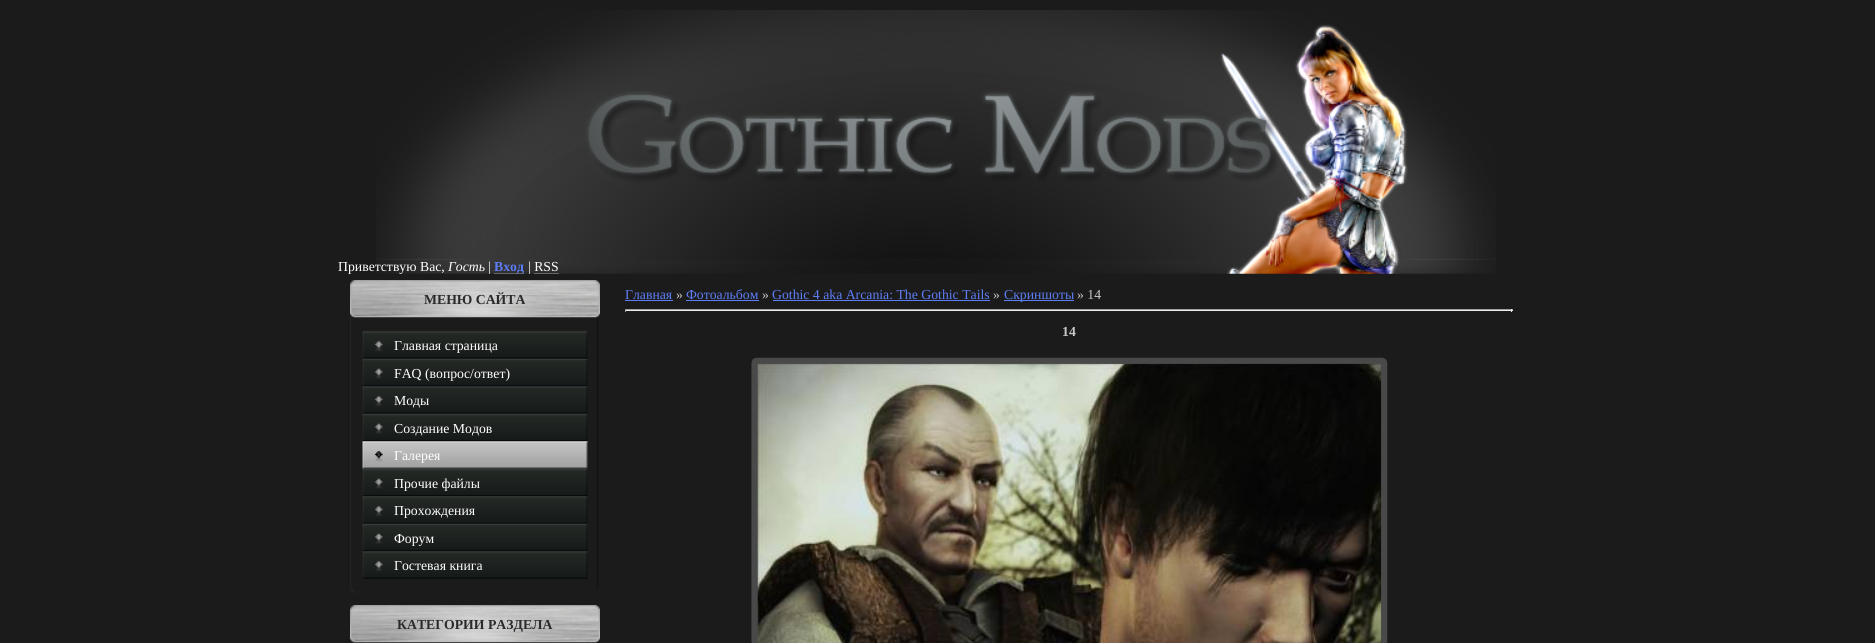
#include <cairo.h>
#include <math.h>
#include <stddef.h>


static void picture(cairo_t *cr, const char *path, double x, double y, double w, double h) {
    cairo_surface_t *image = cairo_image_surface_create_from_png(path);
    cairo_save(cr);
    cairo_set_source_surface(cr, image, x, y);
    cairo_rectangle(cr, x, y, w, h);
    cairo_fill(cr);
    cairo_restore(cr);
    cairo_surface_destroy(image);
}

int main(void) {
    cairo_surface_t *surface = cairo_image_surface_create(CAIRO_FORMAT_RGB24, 1875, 643);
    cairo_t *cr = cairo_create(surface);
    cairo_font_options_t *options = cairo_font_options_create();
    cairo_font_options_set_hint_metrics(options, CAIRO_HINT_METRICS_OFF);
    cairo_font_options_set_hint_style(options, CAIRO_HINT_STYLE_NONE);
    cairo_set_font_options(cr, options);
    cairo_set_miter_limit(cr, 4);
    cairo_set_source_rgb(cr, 0.106, 0.106, 0.106);
    cairo_paint(cr);
    picture(cr, "img1.png", 376, 10, 1120, 250);
    picture(cr, "img2.png", 376, 258, 1120, 16);
    cairo_select_font_face(cr, "Liberation Serif", CAIRO_FONT_SLANT_NORMAL, CAIRO_FONT_WEIGHT_NORMAL);
    cairo_set_font_size(cr, 13.75);
    cairo_set_source_rgb(cr, 1, 1, 1);
    cairo_move_to(cr, 338, 271);
    cairo_show_text(cr, "Приветствую Вас,");
    cairo_select_font_face(cr, "Liberation Serif", CAIRO_FONT_SLANT_ITALIC, CAIRO_FONT_WEIGHT_NORMAL);
    cairo_move_to(cr, 448, 271);
    cairo_show_text(cr, "Гость");
    cairo_select_font_face(cr, "Liberation Serif", CAIRO_FONT_SLANT_NORMAL, CAIRO_FONT_WEIGHT_NORMAL);
    cairo_move_to(cr, 488, 271);
    cairo_show_text(cr, "|");
    cairo_set_source_rgb(cr, 0.4, 0.4, 0.4);
    cairo_rectangle(cr, 494, 273, 30, 1);
    cairo_fill(cr);
    cairo_select_font_face(cr, "Liberation Serif", CAIRO_FONT_SLANT_NORMAL, CAIRO_FONT_WEIGHT_BOLD);
    cairo_set_source_rgb(cr, 0.369, 0.494, 0.969);
    cairo_move_to(cr, 494, 271);
    cairo_show_text(cr, "Вход");
    cairo_select_font_face(cr, "Liberation Serif", CAIRO_FONT_SLANT_NORMAL, CAIRO_FONT_WEIGHT_NORMAL);
    cairo_set_source_rgb(cr, 1, 1, 1);
    cairo_move_to(cr, 528, 271);
    cairo_show_text(cr, "| RSS");
    cairo_set_source_rgb(cr, 0.4, 0.4, 0.4);
    cairo_rectangle(cr, 534, 273, 25, 1);
    cairo_fill(cr);
    picture(cr, "img3.png", 350, 280, 250, 38);
    cairo_select_font_face(cr, "Liberation Serif", CAIRO_FONT_SLANT_NORMAL, CAIRO_FONT_WEIGHT_BOLD);
    cairo_set_source_rgb(cr, 0.169, 0.169, 0.169);
    cairo_move_to(cr, 424, 304);
    cairo_show_text(cr, "МЕНЮ САЙТА");
    picture(cr, "img4.png", 350, 317, 249, 269);
    picture(cr, "img5.png", 362, 331, 226, 28);
    cairo_select_font_face(cr, "Liberation Serif", CAIRO_FONT_SLANT_NORMAL, CAIRO_FONT_WEIGHT_NORMAL);
    cairo_set_source_rgb(cr, 1, 1, 1);
    cairo_move_to(cr, 394, 350);
    cairo_show_text(cr, "Главная страница");
    picture(cr, "img6.png", 362, 358, 226, 29);
    cairo_move_to(cr, 394, 378);
    cairo_show_text(cr, "FAQ (вопрос/ответ)");
    picture(cr, "img7.png", 362, 386, 226, 28);
    cairo_move_to(cr, 394, 405);
    cairo_show_text(cr, "Моды");
    picture(cr, "img6.png", 362, 413, 226, 29);
    cairo_move_to(cr, 394, 433);
    cairo_show_text(cr, "Создание Модов");
    picture(cr, "img8.png", 362, 441, 226, 28);
    cairo_move_to(cr, 394, 460);
    cairo_show_text(cr, "Галерея");
    picture(cr, "img9.png", 362, 468, 226, 29);
    cairo_move_to(cr, 394, 488);
    cairo_show_text(cr, "Прочие файлы");
    picture(cr, "img7.png", 362, 496, 226, 28);
    cairo_move_to(cr, 394, 515);
    cairo_show_text(cr, "Прохождения");
    picture(cr, "img6.png", 362, 523, 226, 29);
    cairo_move_to(cr, 394, 543);
    cairo_show_text(cr, "Форум");
    picture(cr, "img7.png", 362, 551, 226, 28);
    cairo_move_to(cr, 394, 570);
    cairo_show_text(cr, "Гостевая книга");
    picture(cr, "img10.png", 350, 586, 249, 7);
    picture(cr, "img11.png", 350, 605, 250, 38);
    cairo_select_font_face(cr, "Liberation Serif", CAIRO_FONT_SLANT_NORMAL, CAIRO_FONT_WEIGHT_BOLD);
    cairo_set_source_rgb(cr, 0.169, 0.169, 0.169);
    cairo_move_to(cr, 397, 629);
    cairo_show_text(cr, "КАТЕГОРИИ РАЗДЕЛА");
    picture(cr, "img12.png", 351, 642, 248, 1);
    cairo_select_font_face(cr, "Liberation Serif", CAIRO_FONT_SLANT_NORMAL, CAIRO_FONT_WEIGHT_NORMAL);
    cairo_set_source_rgb(cr, 0.369, 0.494, 0.969);
    cairo_move_to(cr, 625, 299);
    cairo_show_text(cr, "Главная");
    cairo_rectangle(cr, 625, 300, 48, 1);
    cairo_fill(cr);
    cairo_set_source_rgb(cr, 0.788, 0.788, 0.788);
    cairo_move_to(cr, 676, 299);
    cairo_show_text(cr, "»");
    cairo_set_source_rgb(cr, 0.369, 0.494, 0.969);
    cairo_move_to(cr, 686, 299);
    cairo_show_text(cr, "Фотоальбом");
    cairo_rectangle(cr, 686, 300, 73, 1);
    cairo_fill(cr);
    cairo_set_source_rgb(cr, 0.788, 0.788, 0.788);
    cairo_move_to(cr, 762, 299);
    cairo_show_text(cr, "»");
    cairo_set_source_rgb(cr, 0.369, 0.494, 0.969);
    cairo_move_to(cr, 772, 299);
    cairo_show_text(cr, "Gothic 4 aka Arcania: The Gothic Tails");
    cairo_rectangle(cr, 773, 300, 217, 1);
    cairo_fill(cr);
    cairo_set_source_rgb(cr, 0.788, 0.788, 0.788);
    cairo_move_to(cr, 993, 299);
    cairo_show_text(cr, "»");
    cairo_set_source_rgb(cr, 0.369, 0.494, 0.969);
    cairo_rectangle(cr, 1004, 300, 70, 1);
    cairo_fill(cr);
    cairo_move_to(cr, 1004, 299);
    cairo_show_text(cr, "Скриншоты");
    cairo_set_source_rgb(cr, 0.788, 0.788, 0.788);
    cairo_move_to(cr, 1077, 299);
    cairo_show_text(cr, "» 14");
    cairo_set_source_rgb(cr, 0.624, 0.624, 0.624);
    cairo_rectangle(cr, 625, 309, 888, 1);
    cairo_fill(cr);
    cairo_set_source_rgb(cr, 0.933, 0.933, 0.933);
    cairo_rectangle(cr, 1511, 309, 1, 3);
    cairo_fill(cr);
    cairo_rectangle(cr, 625, 310, 888, 1);
    cairo_fill(cr);
    cairo_set_source_rgb(cr, 0.624, 0.624, 0.624);
    cairo_rectangle(cr, 625, 309, 1, 3);
    cairo_fill(cr);
    cairo_select_font_face(cr, "Liberation Serif", CAIRO_FONT_SLANT_NORMAL, CAIRO_FONT_WEIGHT_BOLD);
    cairo_set_source_rgb(cr, 0.788, 0.788, 0.788);
    cairo_move_to(cr, 1062, 336);
    cairo_show_text(cr, "14");
    picture(cr, "img13.png", 751, 357, 637, 286);
    picture(cr, "img14.png", 757, 363, 625, 280);
    cairo_surface_write_to_png(surface, "page.png");
    cairo_font_options_destroy(options);
    cairo_destroy(cr);
    cairo_surface_destroy(surface);
    return 0;
}
